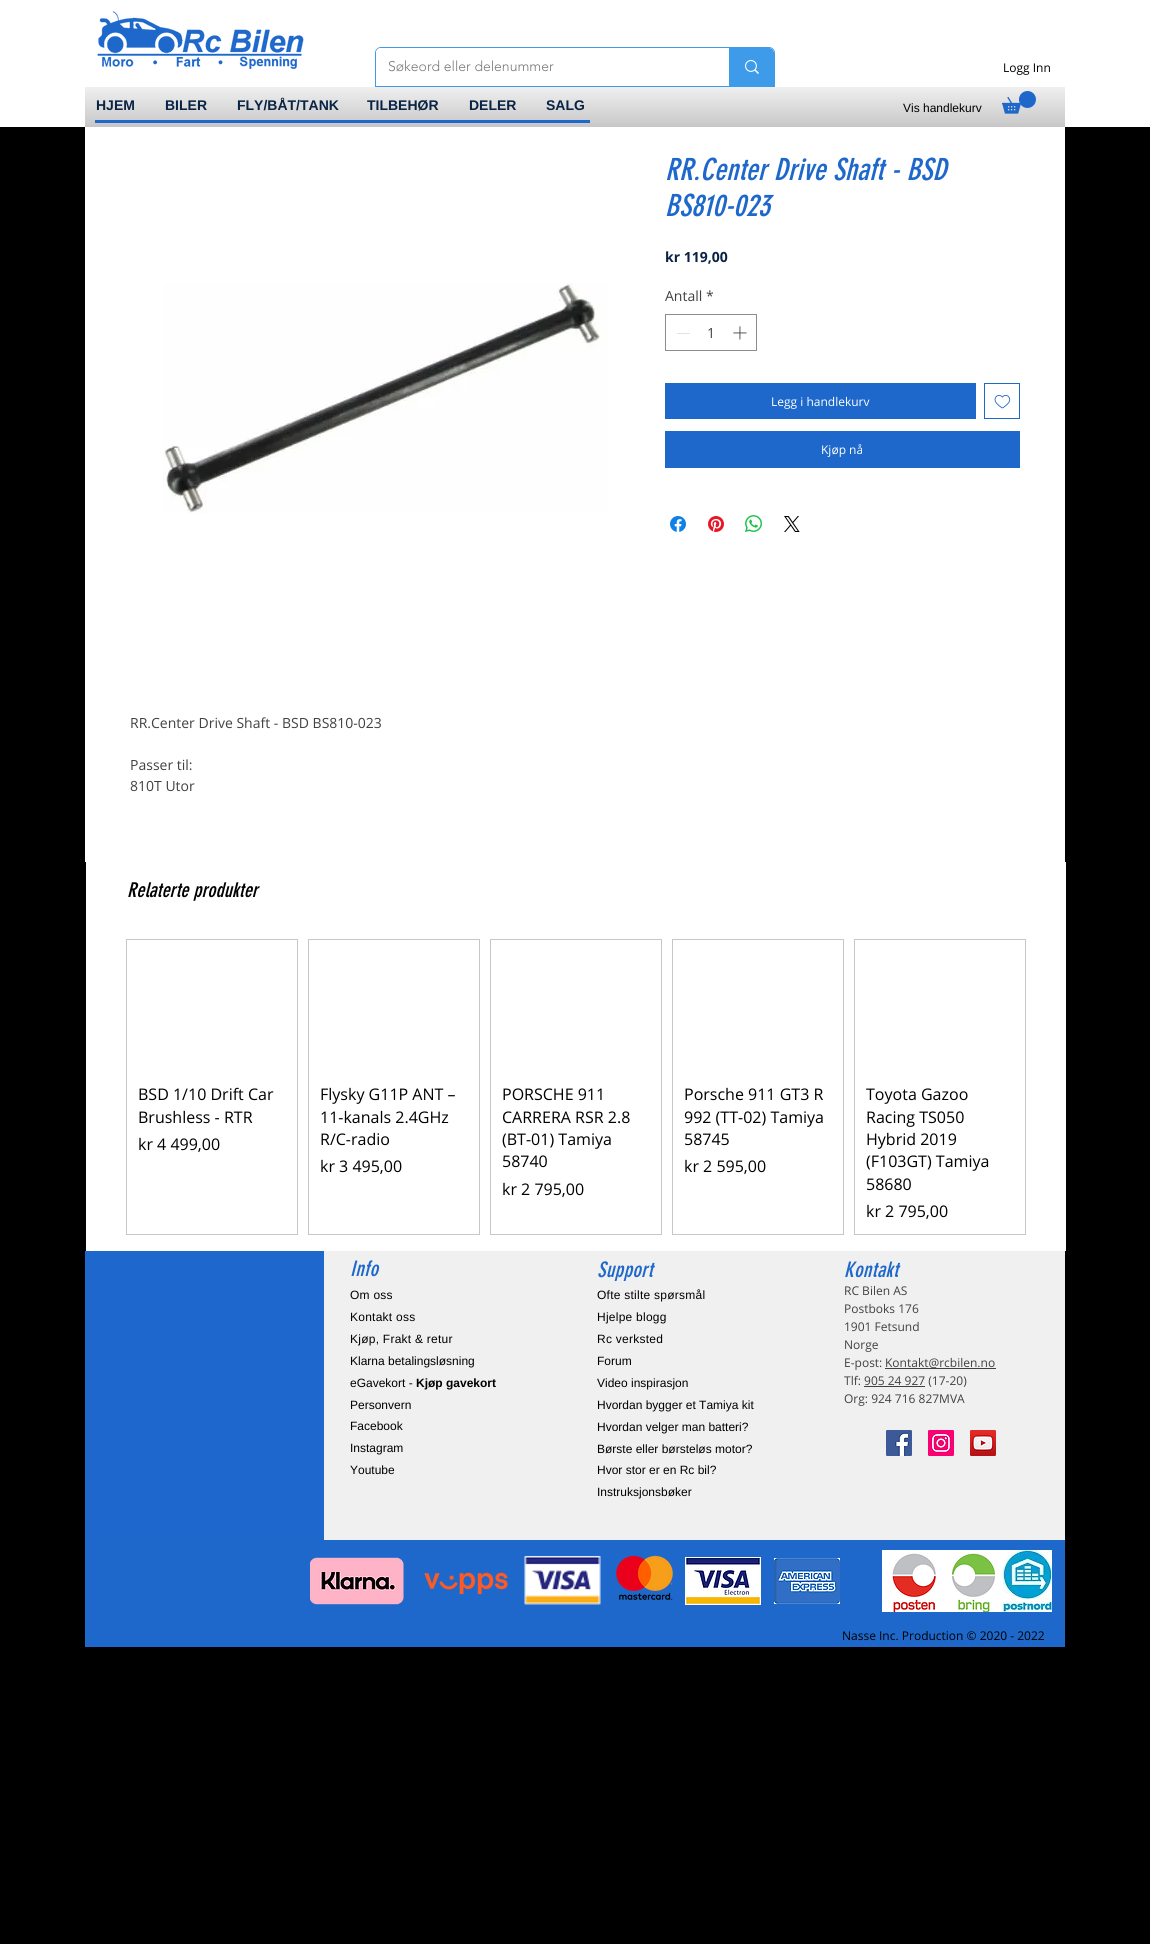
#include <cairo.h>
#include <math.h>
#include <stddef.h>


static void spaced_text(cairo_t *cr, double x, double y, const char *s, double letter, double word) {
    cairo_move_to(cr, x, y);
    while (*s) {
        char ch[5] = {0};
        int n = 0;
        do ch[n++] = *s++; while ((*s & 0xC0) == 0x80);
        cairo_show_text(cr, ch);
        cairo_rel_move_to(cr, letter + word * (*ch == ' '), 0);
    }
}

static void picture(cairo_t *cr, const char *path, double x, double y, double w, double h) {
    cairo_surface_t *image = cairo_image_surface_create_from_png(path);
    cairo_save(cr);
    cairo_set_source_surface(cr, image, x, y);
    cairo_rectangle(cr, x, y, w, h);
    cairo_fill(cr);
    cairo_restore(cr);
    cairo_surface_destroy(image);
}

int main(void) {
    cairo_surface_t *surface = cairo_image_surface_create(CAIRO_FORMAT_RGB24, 1150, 1944);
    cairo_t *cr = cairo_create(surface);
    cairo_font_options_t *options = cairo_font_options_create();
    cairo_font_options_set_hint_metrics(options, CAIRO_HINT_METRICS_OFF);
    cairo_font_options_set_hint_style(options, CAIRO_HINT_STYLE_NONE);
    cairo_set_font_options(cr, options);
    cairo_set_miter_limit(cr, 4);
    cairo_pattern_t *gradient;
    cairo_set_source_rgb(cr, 0, 0, 0);
    cairo_paint(cr);
    cairo_set_source_rgb(cr, 1, 1, 1);
    cairo_rectangle(cr, 0, 0, 1150, 127);
    cairo_fill(cr);
    picture(cr, "img1.png", 97, 11, 207, 58);
    cairo_new_path(cr);
    cairo_move_to(cr, 381, 47.5);
    cairo_line_to(cr, 769, 47.5);
    cairo_curve_to(cr, 772, 47.5, 774.5, 50, 774.5, 53);
    cairo_line_to(cr, 774.5, 86.5);
    cairo_line_to(cr, 375.5, 86.5);
    cairo_line_to(cr, 375.5, 53);
    cairo_curve_to(cr, 375.5, 50, 378, 47.5, 381, 47.5);
    cairo_close_path(cr);
    cairo_set_source_rgb(cr, 0.239, 0.608, 0.914);
    cairo_set_line_width(cr, 1);
    cairo_stroke(cr);
    cairo_set_source_rgb(cr, 1, 1, 1);
    cairo_new_path(cr);
    cairo_move_to(cr, 381, 48);
    cairo_line_to(cr, 769, 48);
    cairo_curve_to(cr, 772, 48, 774, 50, 774, 53);
    cairo_line_to(cr, 774, 86);
    cairo_line_to(cr, 376, 86);
    cairo_line_to(cr, 376, 53);
    cairo_curve_to(cr, 376, 50, 378, 48, 381, 48);
    cairo_close_path(cr);
    cairo_fill(cr);
    cairo_select_font_face(cr, "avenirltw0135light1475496 Light", CAIRO_FONT_SLANT_NORMAL, CAIRO_FONT_WEIGHT_NORMAL);
    cairo_set_font_size(cr, 14);
    cairo_set_source_rgb(cr, 0.471, 0.471, 0.471);
    cairo_move_to(cr, 388, 71);
    cairo_show_text(cr, "Søkeord eller delenummer");
    cairo_set_source_rgb(cr, 0.239, 0.608, 0.914);
    cairo_new_path(cr);
    cairo_move_to(cr, 729, 48);
    cairo_line_to(cr, 769, 48);
    cairo_curve_to(cr, 772, 48, 774, 50, 774, 53);
    cairo_line_to(cr, 774, 86);
    cairo_line_to(cr, 729, 86);
    cairo_close_path(cr);
    cairo_fill(cr);
    picture(cr, "img2.png", 745, 60, 14, 14);
    cairo_select_font_face(cr, "Open Sans", CAIRO_FONT_SLANT_NORMAL, CAIRO_FONT_WEIGHT_NORMAL);
    cairo_set_font_size(cr, 12);
    cairo_set_source_rgb(cr, 0, 0, 0);
    cairo_move_to(cr, 1003, 72);
    cairo_show_text(cr, "Logg Inn");
    gradient = cairo_pattern_create_linear(575, 87, 575, 127);
    cairo_pattern_add_color_stop_rgba(gradient, 0, 0.941, 0.941, 0.941, 1);
    cairo_pattern_add_color_stop_rgba(gradient, 1, 0.78, 0.78, 0.78, 1);
    cairo_set_source(cr, gradient);
    cairo_pattern_destroy(gradient);
    cairo_rectangle(cr, 85, 87, 980, 40);
    cairo_fill(cr);
    cairo_select_font_face(cr, "Liberation Sans", CAIRO_FONT_SLANT_NORMAL, CAIRO_FONT_WEIGHT_BOLD);
    cairo_set_font_size(cr, 14);
    cairo_set_source_rgb(cr, 0.039, 0.137, 0.267);
    cairo_move_to(cr, 96, 110);
    cairo_show_text(cr, "HJEM");
    cairo_move_to(cr, 165, 110);
    cairo_show_text(cr, "BILER");
    cairo_move_to(cr, 237, 110);
    cairo_show_text(cr, "FLY/BÅT/TANK");
    cairo_move_to(cr, 367, 110);
    cairo_show_text(cr, "TILBEHØR");
    cairo_move_to(cr, 469, 110);
    cairo_show_text(cr, "DELER");
    cairo_move_to(cr, 546, 110);
    cairo_show_text(cr, "SALG");
    cairo_select_font_face(cr, "Liberation Sans", CAIRO_FONT_SLANT_NORMAL, CAIRO_FONT_WEIGHT_NORMAL);
    cairo_set_font_size(cr, 12);
    cairo_set_source_rgb(cr, 0, 0, 0);
    cairo_move_to(cr, 903, 112);
    cairo_show_text(cr, "Vis handlekurv");
    picture(cr, "img3.png", 1002, 91, 34, 23);
    cairo_set_source_rgb(cr, 0.118, 0.408, 0.796);
    cairo_rectangle(cr, 95, 120, 495, 3);
    cairo_fill(cr);
    cairo_set_source_rgb(cr, 1, 1, 1);
    cairo_rectangle(cr, 85, 127, 980, 735);
    cairo_fill(cr);
    cairo_select_font_face(cr, "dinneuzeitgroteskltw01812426", CAIRO_FONT_SLANT_ITALIC, CAIRO_FONT_WEIGHT_NORMAL);
    cairo_set_font_size(cr, 30);
    cairo_set_source_rgb(cr, 0.118, 0.408, 0.796);
    cairo_move_to(cr, 665, 180);
    cairo_show_text(cr, "RR.Center Drive Shaft - BSD");
    cairo_move_to(cr, 665, 216);
    cairo_show_text(cr, "BS810-023");
    cairo_select_font_face(cr, "Open Sans", CAIRO_FONT_SLANT_NORMAL, CAIRO_FONT_WEIGHT_BOLD);
    cairo_set_font_size(cr, 14);
    cairo_set_source_rgb(cr, 0.039, 0.137, 0.267);
    cairo_move_to(cr, 665, 262);
    cairo_show_text(cr, "kr 119,00");
    cairo_select_font_face(cr, "Open Sans", CAIRO_FONT_SLANT_NORMAL, CAIRO_FONT_WEIGHT_NORMAL);
    cairo_set_source_rgb(cr, 0.255, 0.255, 0.255);
    cairo_move_to(cr, 665, 301);
    cairo_show_text(cr, "Antall");
    cairo_move_to(cr, 706, 301);
    cairo_show_text(cr, "*");
    cairo_rectangle(cr, 665.5, 314.5, 91, 36);
    cairo_set_source_rgb(cr, 0.553, 0.553, 0.553);
    cairo_stroke(cr);
    cairo_set_source_rgb(cr, 0.89, 0.89, 0.89);
    cairo_rectangle(cr, 677, 333, 13, 1);
    cairo_fill(cr);
    cairo_set_source_rgb(cr, 0.255, 0.255, 0.255);
    cairo_move_to(cr, 707, 338);
    cairo_show_text(cr, "1");
    picture(cr, "img4.png", 733, 326, 14, 14);
    cairo_set_source_rgb(cr, 0.118, 0.408, 0.796);
    cairo_rectangle(cr, 665, 383, 311, 36);
    cairo_fill(cr);
    cairo_set_font_size(cr, 12);
    cairo_set_source_rgb(cr, 1, 1, 1);
    cairo_move_to(cr, 771, 406);
    cairo_show_text(cr, "Legg i handlekurv");
    cairo_rectangle(cr, 984.5, 383.5, 35, 35);
    cairo_set_source_rgb(cr, 0.118, 0.408, 0.796);
    cairo_stroke(cr);
    picture(cr, "img5.png", 994, 395, 17, 14);
    cairo_rectangle(cr, 665, 431, 355, 37);
    cairo_fill(cr);
    cairo_set_source_rgb(cr, 1, 1, 1);
    cairo_move_to(cr, 821, 454);
    cairo_show_text(cr, "Kjøp nå");
    picture(cr, "img6.png", 670, 516, 16, 16);
    picture(cr, "img7.png", 708, 516, 16, 16);
    picture(cr, "img8.png", 745, 515, 17, 17);
    picture(cr, "img9.png", 784, 516, 16, 16);
    picture(cr, "img10.png", 163, 283, 444, 230);
    cairo_set_font_size(cr, 14);
    cairo_set_source_rgb(cr, 0.255, 0.255, 0.255);
    cairo_move_to(cr, 130, 728);
    cairo_show_text(cr, "RR.Center Drive Shaft - BSD BS810-023");
    cairo_move_to(cr, 130, 770);
    cairo_show_text(cr, "Passer til:");
    cairo_move_to(cr, 130, 791);
    cairo_show_text(cr, "810T Utor");
    cairo_set_source_rgb(cr, 1, 1, 1);
    cairo_rectangle(cr, 86, 862, 980, 389);
    cairo_fill(cr);
    cairo_select_font_face(cr, "dinneuzeitgroteskltw01812426", CAIRO_FONT_SLANT_ITALIC, CAIRO_FONT_WEIGHT_NORMAL);
    cairo_set_font_size(cr, 20);
    cairo_set_source_rgb(cr, 0, 0, 0);
    cairo_move_to(cr, 127, 897);
    cairo_show_text(cr, "Relaterte produkter");
    cairo_rectangle(cr, 126.5, 939.5, 171, 295);
    cairo_set_source_rgb(cr, 0.78, 0.78, 0.78);
    cairo_stroke(cr);
    cairo_select_font_face(cr, "Open Sans", CAIRO_FONT_SLANT_NORMAL, CAIRO_FONT_WEIGHT_NORMAL);
    cairo_set_font_size(cr, 16);
    cairo_set_source_rgb(cr, 0, 0, 0);
    cairo_move_to(cr, 138, 1100);
    cairo_show_text(cr, "BSD 1/10 Drift Car");
    cairo_move_to(cr, 138, 1123);
    cairo_show_text(cr, "Brushless - RTR");
    cairo_move_to(cr, 138, 1150);
    cairo_show_text(cr, "kr 4 499,00");
    cairo_rectangle(cr, 308.5, 939.5, 171, 295);
    cairo_set_source_rgb(cr, 0.78, 0.78, 0.78);
    cairo_stroke(cr);
    cairo_set_source_rgb(cr, 0, 0, 0);
    cairo_move_to(cr, 320, 1100);
    cairo_show_text(cr, "Flysky G11P ANT –");
    cairo_move_to(cr, 320, 1123);
    cairo_show_text(cr, "11-kanals 2.4GHz");
    cairo_move_to(cr, 320, 1145);
    cairo_show_text(cr, "R/C-radio");
    cairo_move_to(cr, 320, 1172);
    cairo_show_text(cr, "kr 3 495,00");
    cairo_rectangle(cr, 490.5, 939.5, 171, 295);
    cairo_set_source_rgb(cr, 0.78, 0.78, 0.78);
    cairo_stroke(cr);
    cairo_set_source_rgb(cr, 0, 0, 0);
    cairo_move_to(cr, 502, 1100);
    cairo_show_text(cr, "PORSCHE 911");
    cairo_move_to(cr, 502, 1123);
    cairo_show_text(cr, "CARRERA RSR 2.8");
    cairo_move_to(cr, 502, 1145);
    cairo_show_text(cr, "(BT-01) Tamiya");
    cairo_move_to(cr, 502, 1167);
    cairo_show_text(cr, "58740");
    cairo_move_to(cr, 502, 1195);
    cairo_show_text(cr, "kr 2 795,00");
    cairo_rectangle(cr, 672.5, 939.5, 171, 295);
    cairo_set_source_rgb(cr, 0.78, 0.78, 0.78);
    cairo_stroke(cr);
    cairo_set_source_rgb(cr, 0, 0, 0);
    cairo_move_to(cr, 684, 1100);
    cairo_show_text(cr, "Porsche 911 GT3 R");
    cairo_move_to(cr, 684, 1123);
    cairo_show_text(cr, "992 (TT-02) Tamiya");
    cairo_move_to(cr, 684, 1145);
    cairo_show_text(cr, "58745");
    cairo_move_to(cr, 684, 1172);
    cairo_show_text(cr, "kr 2 595,00");
    cairo_rectangle(cr, 854.5, 939.5, 171, 295);
    cairo_set_source_rgb(cr, 0.78, 0.78, 0.78);
    cairo_stroke(cr);
    cairo_set_source_rgb(cr, 0, 0, 0);
    cairo_move_to(cr, 866, 1100);
    cairo_show_text(cr, "Toyota Gazoo");
    cairo_move_to(cr, 866, 1123);
    cairo_show_text(cr, "Racing TS050");
    cairo_move_to(cr, 866, 1145);
    cairo_show_text(cr, "Hybrid 2019");
    cairo_move_to(cr, 866, 1167);
    cairo_show_text(cr, "(F103GT) Tamiya");
    cairo_move_to(cr, 866, 1190);
    cairo_show_text(cr, "58680");
    cairo_move_to(cr, 866, 1217);
    cairo_show_text(cr, "kr 2 795,00");
    cairo_set_source_rgb(cr, 0.118, 0.408, 0.804);
    cairo_rectangle(cr, 85, 1251, 239, 289);
    cairo_fill(cr);
    cairo_set_source_rgb(cr, 0.941, 0.941, 0.941);
    cairo_rectangle(cr, 324, 1251, 741, 289);
    cairo_fill(cr);
    cairo_select_font_face(cr, "dinneuzeitgroteskltw01812426", CAIRO_FONT_SLANT_ITALIC, CAIRO_FONT_WEIGHT_NORMAL);
    cairo_set_font_size(cr, 21);
    cairo_set_source_rgb(cr, 0.118, 0.408, 0.796);
    spaced_text(cr, 350, 1276, "Info", 0.25, 0);
    cairo_select_font_face(cr, "Liberation Sans", CAIRO_FONT_SLANT_NORMAL, CAIRO_FONT_WEIGHT_NORMAL);
    cairo_set_font_size(cr, 12);
    cairo_set_source_rgb(cr, 0, 0, 0);
    spaced_text(cr, 350, 1299, "Om oss", 0.25, 0);
    spaced_text(cr, 350, 1321, "Kontakt oss", 0.25, 0);
    spaced_text(cr, 350, 1343, "Kjøp, Frakt & retur", 0.25, 0);
    cairo_move_to(cr, 350, 1365);
    cairo_show_text(cr, "Klarna betalingsløsning");
    cairo_move_to(cr, 350, 1387);
    cairo_show_text(cr, "eGavekort -");
    cairo_select_font_face(cr, "Liberation Sans", CAIRO_FONT_SLANT_NORMAL, CAIRO_FONT_WEIGHT_BOLD);
    cairo_move_to(cr, 416, 1387);
    cairo_show_text(cr, "Kjøp gavekort");
    cairo_select_font_face(cr, "Liberation Sans", CAIRO_FONT_SLANT_NORMAL, CAIRO_FONT_WEIGHT_NORMAL);
    cairo_move_to(cr, 350, 1409);
    cairo_show_text(cr, "Personvern");
    cairo_move_to(cr, 350, 1430);
    cairo_show_text(cr, "Facebook");
    cairo_move_to(cr, 350, 1452);
    cairo_show_text(cr, "Instagram");
    cairo_move_to(cr, 350, 1474);
    cairo_show_text(cr, "Youtube");
    cairo_select_font_face(cr, "dinneuzeitgroteskltw01812426", CAIRO_FONT_SLANT_ITALIC, CAIRO_FONT_WEIGHT_NORMAL);
    cairo_set_font_size(cr, 21);
    cairo_set_source_rgb(cr, 0.118, 0.408, 0.796);
    spaced_text(cr, 597, 1277, "Support", 0.25, 0);
    cairo_select_font_face(cr, "Liberation Sans", CAIRO_FONT_SLANT_NORMAL, CAIRO_FONT_WEIGHT_NORMAL);
    cairo_set_font_size(cr, 12);
    cairo_set_source_rgb(cr, 0, 0, 0);
    spaced_text(cr, 597, 1299, "Ofte stilte spørsmål", 0.25, 0);
    spaced_text(cr, 597, 1321, "Hjelpe blogg", 0.25, 0);
    spaced_text(cr, 597, 1343, "Rc verksted", 0.25, 0);
    cairo_move_to(cr, 597, 1365);
    cairo_show_text(cr, "Forum");
    cairo_move_to(cr, 597, 1387);
    cairo_show_text(cr, "Video inspirasjon");
    cairo_move_to(cr, 597, 1409);
    cairo_show_text(cr, "Hvordan bygger et Tamiya kit");
    cairo_move_to(cr, 597, 1431);
    cairo_show_text(cr, "Hvordan velger man batteri?");
    cairo_move_to(cr, 597, 1453);
    cairo_show_text(cr, "Børste eller børsteløs motor?");
    cairo_move_to(cr, 597, 1474);
    cairo_show_text(cr, "Hvor stor er en Rc bil?");
    cairo_move_to(cr, 597, 1496);
    cairo_show_text(cr, "Instruksjonsbøker");
    cairo_select_font_face(cr, "dinneuzeitgroteskltw01812426", CAIRO_FONT_SLANT_ITALIC, CAIRO_FONT_WEIGHT_NORMAL);
    cairo_set_font_size(cr, 21);
    cairo_set_source_rgb(cr, 0.118, 0.408, 0.796);
    spaced_text(cr, 844, 1277, "Kontakt", 0.25, 0);
    cairo_select_font_face(cr, "Open Sans", CAIRO_FONT_SLANT_NORMAL, CAIRO_FONT_WEIGHT_NORMAL);
    cairo_set_font_size(cr, 12);
    cairo_set_source_rgb(cr, 0.255, 0.255, 0.255);
    cairo_move_to(cr, 844, 1295);
    cairo_show_text(cr, "RC Bilen AS");
    cairo_move_to(cr, 844, 1313);
    cairo_show_text(cr, "Postboks 176");
    cairo_move_to(cr, 844, 1331);
    cairo_show_text(cr, "1901 Fetsund");
    cairo_move_to(cr, 844, 1349);
    cairo_show_text(cr, "Norge");
    cairo_move_to(cr, 844, 1367);
    cairo_show_text(cr, "E-post:");
    cairo_rectangle(cr, 885, 1368, 111, 1);
    cairo_fill(cr);
    cairo_move_to(cr, 885, 1367);
    cairo_show_text(cr, "Kontakt@rcbilen.no");
    cairo_move_to(cr, 844, 1385);
    cairo_show_text(cr, "Tlf: 905 24 927 (17-20)");
    cairo_rectangle(cr, 864, 1386, 61, 1);
    cairo_fill(cr);
    cairo_move_to(cr, 844, 1403);
    cairo_show_text(cr, "Org: 924 716 827MVA");
    picture(cr, "img11.png", 886, 1430, 26, 26);
    picture(cr, "img12.png", 928, 1430, 26, 26);
    picture(cr, "img13.png", 970, 1430, 26, 26);
    cairo_set_source_rgb(cr, 0.118, 0.408, 0.796);
    cairo_rectangle(cr, 85, 1540, 980, 107);
    cairo_fill(cr);
    picture(cr, "img14.png", 310, 1557, 94, 48);
    picture(cr, "img15.png", 424, 1572, 84, 23);
    picture(cr, "img16.png", 524, 1555, 77, 50);
    picture(cr, "img17.png", 616, 1555, 57, 45);
    picture(cr, "img18.png", 685, 1557, 76, 48);
    picture(cr, "img19.png", 774, 1558, 66, 46);
    picture(cr, "img20.png", 882, 1550, 121, 62);
    picture(cr, "img21.png", 1003, 1550, 49, 62);
    cairo_set_source_rgb(cr, 0, 0, 0);
    cairo_move_to(cr, 842, 1640);
    cairo_show_text(cr, "Nasse Inc. Production © 2020 - 2022");
    cairo_surface_write_to_png(surface, "page.png");
    cairo_font_options_destroy(options);
    cairo_destroy(cr);
    cairo_surface_destroy(surface);
    return 0;
}
